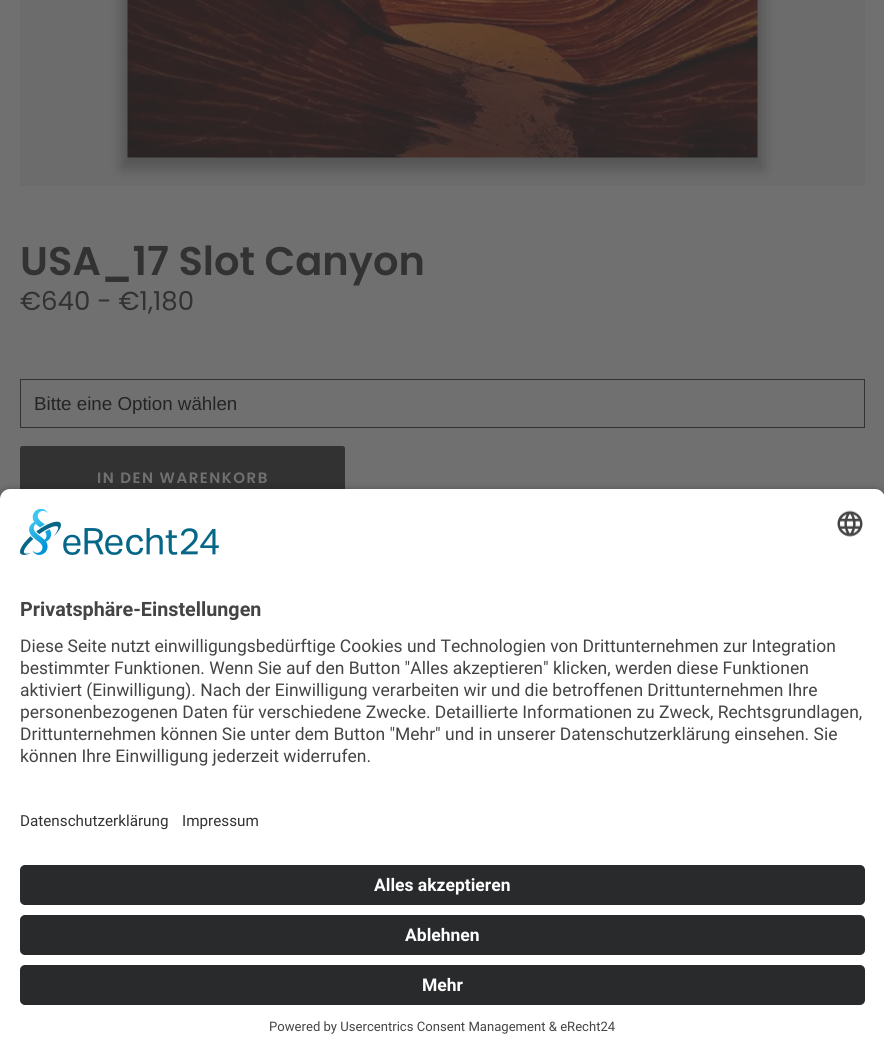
#include <cairo.h>
#include <math.h>
#include <stddef.h>


static void spaced_text(cairo_t *cr, double x, double y, const char *s, double letter, double word) {
    cairo_move_to(cr, x, y);
    while (*s) {
        char ch[5] = {0};
        int n = 0;
        do ch[n++] = *s++; while ((*s & 0xC0) == 0x80);
        cairo_show_text(cr, ch);
        cairo_rel_move_to(cr, letter + word * (*ch == ' '), 0);
    }
}

static void round_rect(cairo_t *cr, double x, double y, double w, double h, double r) {
    cairo_new_sub_path(cr);
    cairo_arc(cr, x + w - r, y + h - r, r, 0, M_PI / 2);
    cairo_arc(cr, x + r, y + h - r, r, M_PI / 2, M_PI);
    cairo_arc(cr, x + r, y + r, r, M_PI, 1.5 * M_PI);
    cairo_arc(cr, x + w - r, y + r, r, 1.5 * M_PI, 2 * M_PI);
    cairo_close_path(cr);
}

static void shadow(cairo_t *cr, double x, double y, double w, double h, double r, double blur, double alpha) {
    cairo_push_group_with_content(cr, CAIRO_CONTENT_ALPHA);
    cairo_set_operator(cr, CAIRO_OPERATOR_SOURCE);
    for (int i = 15; i >= -15 && fmin(w, h) + blur * i / 3 > 0; i -= 2) {
        double e = blur * i / 6;
        cairo_set_source_rgba(cr, 0, 0, 0, alpha * erfc((i - 1) / 8.5) / 2);
        round_rect(cr, x - e, y - e, w + 2 * e, h + 2 * e, fmax(0, fmin(r + e + blur * .6, fmin(w, h) / 2 + e)));
        cairo_fill(cr);
    }
    cairo_pattern_t *soft = cairo_pop_group(cr);
    cairo_mask(cr, soft);
    cairo_pattern_destroy(soft);
}

static void picture(cairo_t *cr, const char *path, double x, double y, double w, double h) {
    cairo_surface_t *image = cairo_image_surface_create_from_png(path);
    cairo_save(cr);
    cairo_set_source_surface(cr, image, x, y);
    cairo_rectangle(cr, x, y, w, h);
    cairo_fill(cr);
    cairo_restore(cr);
    cairo_surface_destroy(image);
}

int main(void) {
    cairo_surface_t *surface = cairo_image_surface_create(CAIRO_FORMAT_RGB24, 884, 1054);
    cairo_t *cr = cairo_create(surface);
    cairo_font_options_t *options = cairo_font_options_create();
    cairo_font_options_set_hint_metrics(options, CAIRO_HINT_METRICS_OFF);
    cairo_font_options_set_hint_style(options, CAIRO_HINT_STYLE_NONE);
    cairo_set_font_options(cr, options);
    cairo_set_miter_limit(cr, 4);
    cairo_set_source_rgb(cr, 0.439, 0.439, 0.439);
    cairo_paint(cr);
    cairo_set_source_rgb(cr, 0.424, 0.424, 0.424);
    cairo_rectangle(cr, 20, 0, 845, 186);
    cairo_fill(cr);
    cairo_set_source_rgb(cr, 0.333, 0.333, 0.333);
    shadow(cr, 121, -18, 643, 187, 0, 6, 1);
    picture(cr, "img1.png", 127, 0, 631, 158);
    cairo_select_font_face(cr, "Poppins SemiBold", CAIRO_FONT_SLANT_NORMAL, CAIRO_FONT_WEIGHT_NORMAL);
    cairo_set_font_size(cr, 40);
    cairo_set_source_rgb(cr, 0.196, 0.196, 0.2);
    cairo_move_to(cr, 20, 275);
    cairo_show_text(cr, "USA_17 Slot Canyon");
    cairo_select_font_face(cr, "Poppins", CAIRO_FONT_SLANT_NORMAL, CAIRO_FONT_WEIGHT_NORMAL);
    cairo_set_font_size(cr, 26);
    cairo_move_to(cr, 20, 310);
    cairo_show_text(cr, "€640 - €1,180");
    cairo_rectangle(cr, 20.5, 379.5, 844, 48);
    cairo_set_line_width(cr, 1);
    cairo_stroke(cr);
    cairo_select_font_face(cr, "Liberation Sans", CAIRO_FONT_SLANT_NORMAL, CAIRO_FONT_WEIGHT_NORMAL);
    cairo_set_font_size(cr, 18.75);
    cairo_set_source_rgb(cr, 0.141, 0.141, 0.141);
    cairo_move_to(cr, 34, 410);
    cairo_show_text(cr, "Bitte eine Option wählen");
    cairo_set_source_rgb(cr, 0.196, 0.196, 0.2);
    round_rect(cr, 20.5, 446.5, 324, 61, 2);
    cairo_fill_preserve(cr);
    cairo_stroke(cr);
    cairo_select_font_face(cr, "Poppins SemiBold", CAIRO_FONT_SLANT_NORMAL, CAIRO_FONT_WEIGHT_NORMAL);
    cairo_set_font_size(cr, 15);
    cairo_set_source_rgb(cr, 0.439, 0.439, 0.439);
    spaced_text(cr, 97, 483, "IN DEN WARENKORB", 1.5, 0);
    cairo_set_source_rgb(cr, 0, 0, 0);
    shadow(cr, 0, 493, 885, 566, 10, 4.5, 0.8);
    cairo_set_source_rgb(cr, 1, 1, 1);
    cairo_new_path(cr);
    cairo_move_to(cr, 10, 489);
    cairo_line_to(cr, 875, 489);
    cairo_curve_to(cr, 880.5, 489, 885, 493.5, 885, 499);
    cairo_line_to(cr, 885, 793);
    cairo_line_to(cr, 0, 793);
    cairo_line_to(cr, 0, 499);
    cairo_curve_to(cr, 0, 493.5, 4.5, 489, 10, 489);
    cairo_close_path(cr);
    cairo_fill(cr);
    picture(cr, "img2.png", 20, 509, 199, 46);
    picture(cr, "img3.png", 837, 510, 26, 27);
    cairo_select_font_face(cr, "Roboto", CAIRO_FONT_SLANT_NORMAL, CAIRO_FONT_WEIGHT_BOLD);
    cairo_set_font_size(cr, 19.75);
    cairo_set_source_rgb(cr, 0.267, 0.267, 0.267);
    cairo_move_to(cr, 20, 616);
    cairo_show_text(cr, "Privatsphäre-Einstellungen");
    cairo_select_font_face(cr, "Roboto", CAIRO_FONT_SLANT_NORMAL, CAIRO_FONT_WEIGHT_NORMAL);
    cairo_set_font_size(cr, 17.5);
    cairo_move_to(cr, 20, 652);
    cairo_show_text(cr, "Diese Seite nutzt einwilligungsbedürftige Cookies und Technologien von Drittunternehmen zur Integration");
    cairo_move_to(cr, 20, 674);
    cairo_show_text(cr, "bestimmter Funktionen. Wenn Sie auf den Button \"Alles akzeptieren\" klicken, werden diese Funktionen");
    cairo_move_to(cr, 20, 696);
    cairo_show_text(cr, "aktiviert (Einwilligung). Nach der Einwilligung verarbeiten wir und die betroffenen Drittunternehmen Ihre");
    cairo_move_to(cr, 20, 718);
    cairo_show_text(cr, "personenbezogenen Daten für verschiedene Zwecke. Detaillierte Informationen zu Zweck, Rechtsgrundlagen,");
    cairo_move_to(cr, 20, 740);
    cairo_show_text(cr, "Drittunternehmen können Sie unter dem Button \"Mehr\" und in unserer Datenschutzerklärung einsehen. Sie");
    cairo_move_to(cr, 20, 762);
    cairo_show_text(cr, "können Ihre Einwilligung jederzeit widerrufen.");
    cairo_set_source_rgb(cr, 1, 1, 1);
    cairo_rectangle(cr, 0, 793, 884, 261);
    cairo_fill(cr);
    cairo_set_font_size(cr, 15.25);
    cairo_set_source_rgb(cr, 0.196, 0.196, 0.2);
    cairo_move_to(cr, 20, 826);
    cairo_show_text(cr, "Datenschutzerklärung");
    cairo_move_to(cr, 182, 826);
    cairo_show_text(cr, "Impressum");
    cairo_set_source_rgb(cr, 0.161, 0.165, 0.169);
    round_rect(cr, 20, 865, 845, 40, 5);
    cairo_fill(cr);
    cairo_select_font_face(cr, "Roboto", CAIRO_FONT_SLANT_NORMAL, CAIRO_FONT_WEIGHT_BOLD);
    cairo_set_font_size(cr, 17.5);
    cairo_set_source_rgb(cr, 1, 1, 1);
    cairo_move_to(cr, 374, 891);
    cairo_show_text(cr, "Alles akzeptieren");
    cairo_set_source_rgb(cr, 0.161, 0.165, 0.169);
    round_rect(cr, 20, 915, 845, 40, 5);
    cairo_fill(cr);
    cairo_set_source_rgb(cr, 1, 1, 1);
    cairo_move_to(cr, 405, 941);
    cairo_show_text(cr, "Ablehnen");
    cairo_set_source_rgb(cr, 0.161, 0.165, 0.169);
    round_rect(cr, 20, 965, 845, 40, 5);
    cairo_fill(cr);
    cairo_set_source_rgb(cr, 1, 1, 1);
    cairo_move_to(cr, 422, 991);
    cairo_show_text(cr, "Mehr");
    cairo_select_font_face(cr, "Roboto", CAIRO_FONT_SLANT_NORMAL, CAIRO_FONT_WEIGHT_NORMAL);
    cairo_set_font_size(cr, 13.1);
    cairo_set_source_rgb(cr, 0.267, 0.267, 0.267);
    cairo_move_to(cr, 269, 1031);
    cairo_show_text(cr, "Powered by Usercentrics Consent Management & eRecht24");
    cairo_surface_write_to_png(surface, "page.png");
    cairo_font_options_destroy(options);
    cairo_destroy(cr);
    cairo_surface_destroy(surface);
    return 0;
}
